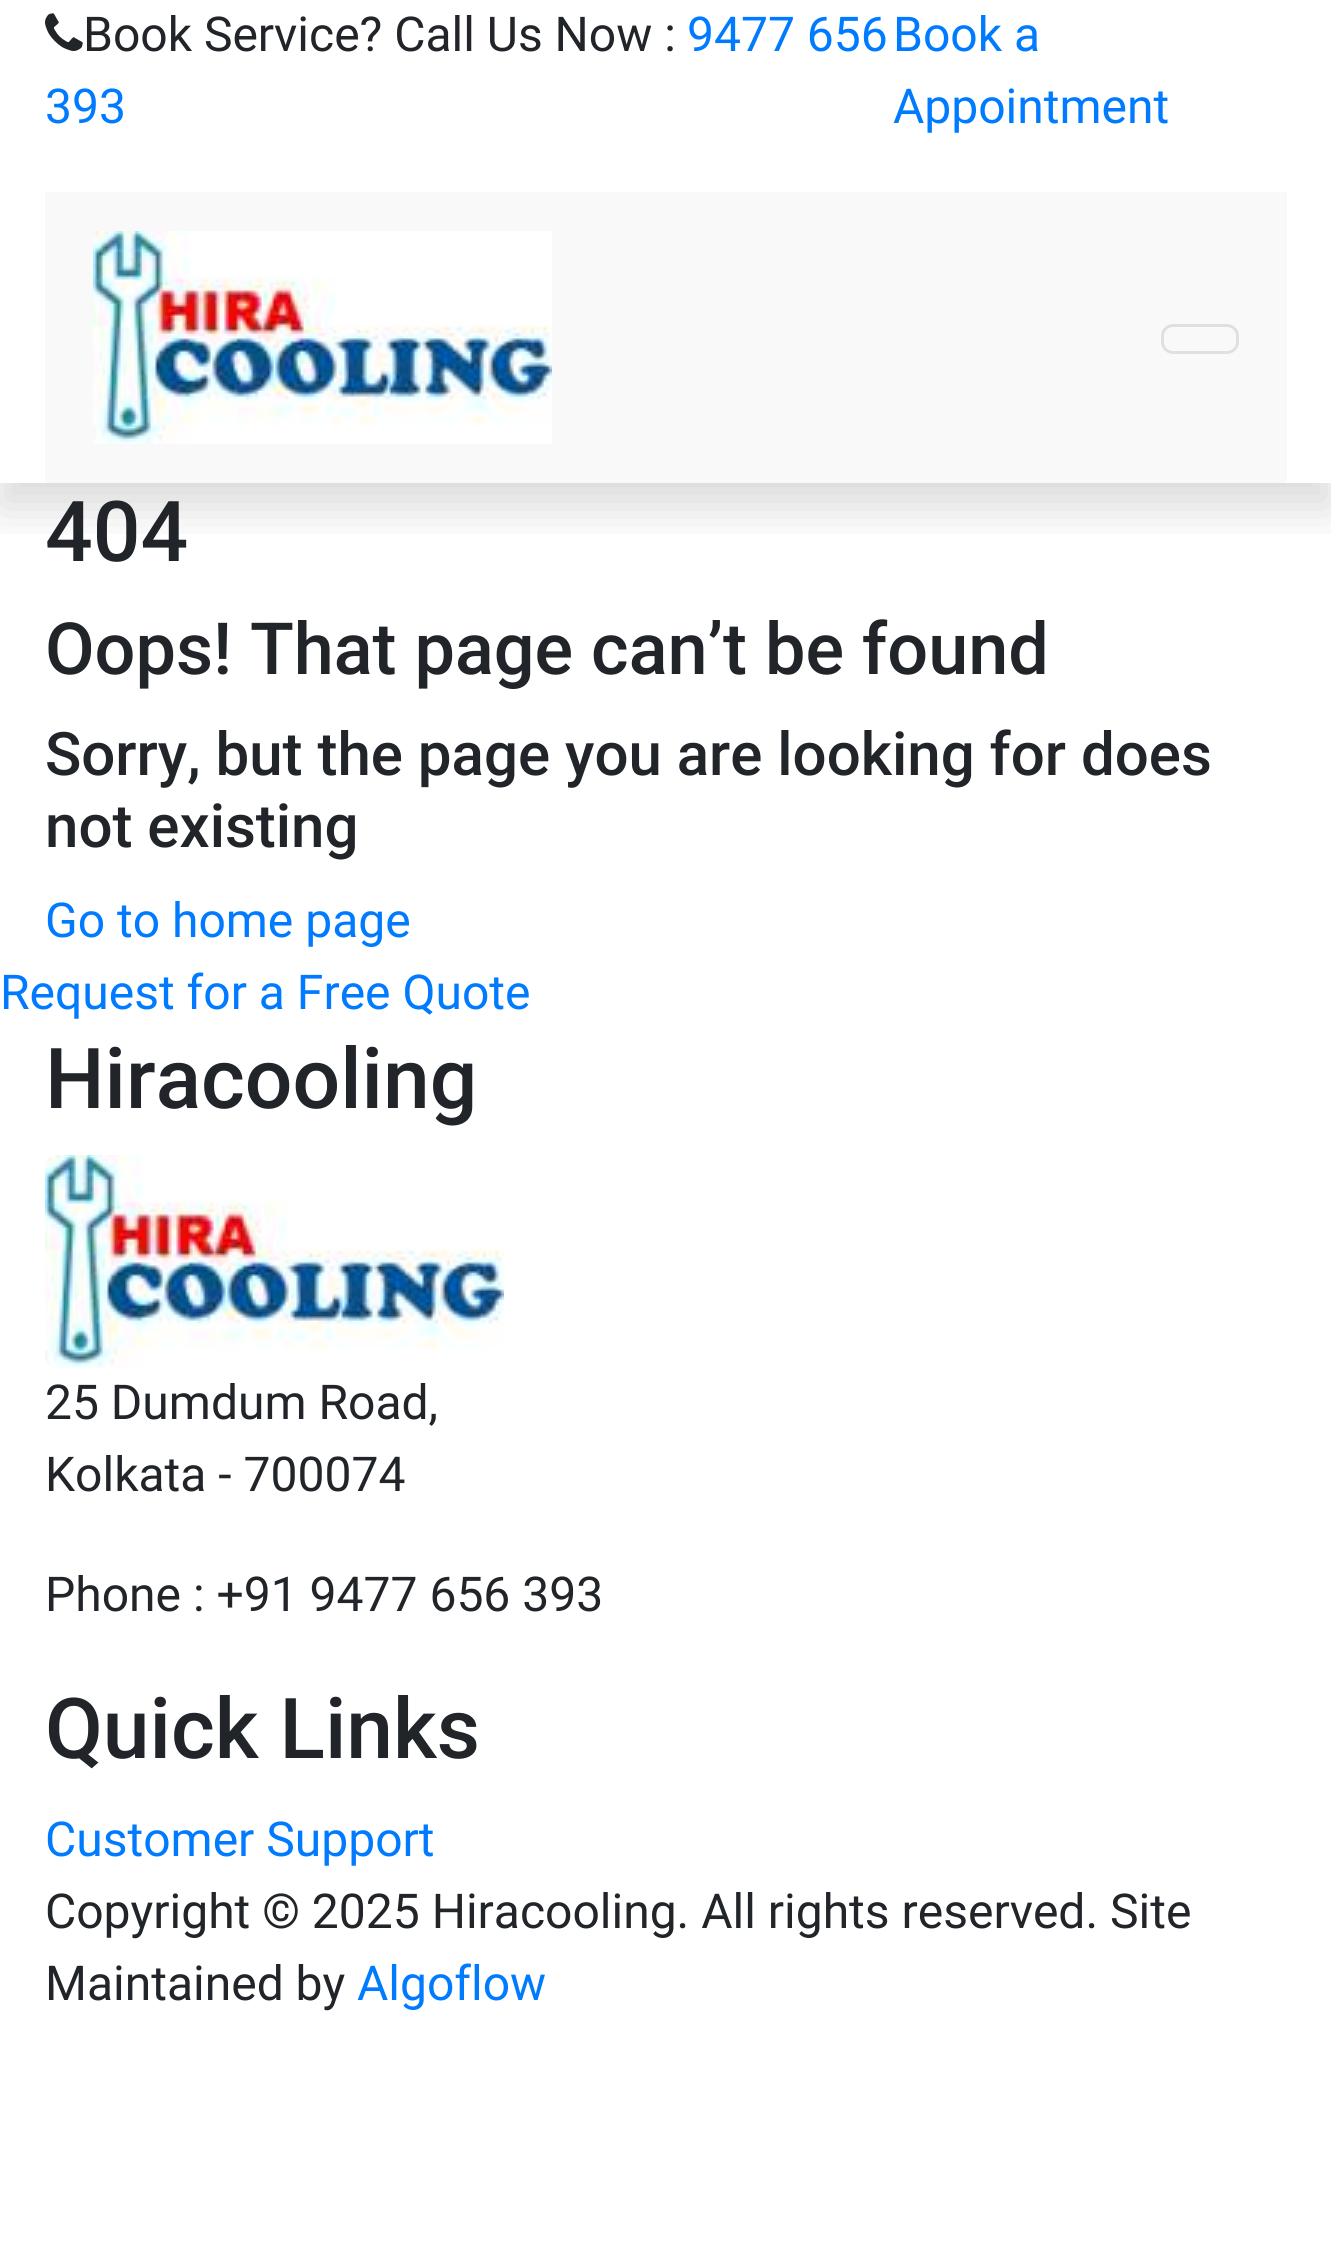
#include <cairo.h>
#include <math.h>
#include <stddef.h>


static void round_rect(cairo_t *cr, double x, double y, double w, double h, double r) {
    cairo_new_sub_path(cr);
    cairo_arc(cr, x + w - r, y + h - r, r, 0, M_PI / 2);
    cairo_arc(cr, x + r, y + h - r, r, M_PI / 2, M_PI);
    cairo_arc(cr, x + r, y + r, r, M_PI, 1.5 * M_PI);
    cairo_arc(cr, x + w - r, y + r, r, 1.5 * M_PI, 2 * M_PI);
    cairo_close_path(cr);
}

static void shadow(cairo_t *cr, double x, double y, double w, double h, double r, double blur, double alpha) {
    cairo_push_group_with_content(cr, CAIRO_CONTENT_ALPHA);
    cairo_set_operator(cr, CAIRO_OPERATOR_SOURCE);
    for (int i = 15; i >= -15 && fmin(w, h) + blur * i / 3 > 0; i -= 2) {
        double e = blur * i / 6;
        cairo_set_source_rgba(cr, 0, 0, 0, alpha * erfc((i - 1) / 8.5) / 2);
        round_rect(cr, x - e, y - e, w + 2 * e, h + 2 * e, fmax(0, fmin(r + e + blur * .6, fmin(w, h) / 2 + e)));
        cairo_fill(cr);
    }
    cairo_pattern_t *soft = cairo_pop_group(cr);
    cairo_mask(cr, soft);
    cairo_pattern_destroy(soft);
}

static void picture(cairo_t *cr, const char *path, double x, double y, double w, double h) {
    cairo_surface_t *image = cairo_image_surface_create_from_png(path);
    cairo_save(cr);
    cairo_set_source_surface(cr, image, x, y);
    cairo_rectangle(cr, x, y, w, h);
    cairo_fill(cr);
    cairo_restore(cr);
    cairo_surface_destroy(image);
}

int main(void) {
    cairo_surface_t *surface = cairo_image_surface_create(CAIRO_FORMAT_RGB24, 1331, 2249);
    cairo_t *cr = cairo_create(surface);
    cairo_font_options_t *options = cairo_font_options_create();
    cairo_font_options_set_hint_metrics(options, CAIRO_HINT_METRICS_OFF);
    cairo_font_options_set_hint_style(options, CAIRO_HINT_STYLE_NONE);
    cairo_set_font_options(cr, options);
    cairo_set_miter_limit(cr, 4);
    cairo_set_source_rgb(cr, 1, 1, 1);
    cairo_paint(cr);
    cairo_save(cr);
    cairo_rectangle(cr, 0, 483, 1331, 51);
    cairo_clip(cr);
    cairo_set_source_rgb(cr, 0, 0, 0);
    shadow(cr, 0, 24, 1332, 483, 0, 24, 0.15);
    cairo_restore(cr);
    picture(cr, "img1.png", 45, 13, 38, 38);
    cairo_select_font_face(cr, "Roboto", CAIRO_FONT_SLANT_NORMAL, CAIRO_FONT_WEIGHT_NORMAL);
    cairo_set_font_size(cr, 48);
    cairo_set_source_rgb(cr, 0.129, 0.145, 0.161);
    cairo_move_to(cr, 83, 51);
    cairo_show_text(cr, "Book Service? Call Us Now :");
    cairo_set_source_rgb(cr, 0, 0.482, 1);
    cairo_move_to(cr, 687, 51);
    cairo_show_text(cr, "9477 656");
    cairo_move_to(cr, 45, 123);
    cairo_show_text(cr, "393");
    cairo_move_to(cr, 893, 51);
    cairo_show_text(cr, "Book a");
    cairo_move_to(cr, 893, 123);
    cairo_show_text(cr, "Appointment");
    cairo_set_source_rgb(cr, 0.973, 0.976, 0.98);
    cairo_rectangle(cr, 45, 192, 1242, 291);
    cairo_fill(cr);
    picture(cr, "img2.png", 93, 231, 459, 213);
    round_rect(cr, 1162.5, 325.5, 75, 27, 10.5);
    cairo_set_source_rgb(cr, 0.875, 0.878, 0.882);
    cairo_set_line_width(cr, 3);
    cairo_stroke(cr);
    cairo_select_font_face(cr, "Roboto Medium", CAIRO_FONT_SLANT_NORMAL, CAIRO_FONT_WEIGHT_NORMAL);
    cairo_set_font_size(cr, 84);
    cairo_set_source_rgb(cr, 0.129, 0.145, 0.161);
    cairo_move_to(cr, 45, 561);
    cairo_show_text(cr, "404");
    cairo_set_font_size(cr, 72);
    cairo_move_to(cr, 45, 674);
    cairo_show_text(cr, "Oops! That page can’t be found");
    cairo_set_font_size(cr, 60);
    cairo_move_to(cr, 45, 775);
    cairo_show_text(cr, "Sorry, but the page you are looking for does");
    cairo_move_to(cr, 45, 847);
    cairo_show_text(cr, "not existing");
    cairo_select_font_face(cr, "Roboto", CAIRO_FONT_SLANT_NORMAL, CAIRO_FONT_WEIGHT_NORMAL);
    cairo_set_font_size(cr, 48);
    cairo_set_source_rgb(cr, 0, 0.482, 1);
    cairo_move_to(cr, 45, 937);
    cairo_show_text(cr, "Go to home page");
    cairo_move_to(cr, 0, 1009);
    cairo_show_text(cr, "Request for a Free Quote");
    cairo_select_font_face(cr, "Roboto Medium", CAIRO_FONT_SLANT_NORMAL, CAIRO_FONT_WEIGHT_NORMAL);
    cairo_set_font_size(cr, 84);
    cairo_set_source_rgb(cr, 0.129, 0.145, 0.161);
    cairo_move_to(cr, 45, 1108);
    cairo_show_text(cr, "Hiracooling");
    picture(cr, "img3.png", 45, 1155, 459, 213);
    cairo_select_font_face(cr, "Roboto", CAIRO_FONT_SLANT_NORMAL, CAIRO_FONT_WEIGHT_NORMAL);
    cairo_set_font_size(cr, 48);
    cairo_move_to(cr, 45, 1419);
    cairo_show_text(cr, "25 Dumdum Road,");
    cairo_move_to(cr, 45, 1491);
    cairo_show_text(cr, "Kolkata - 700074");
    cairo_move_to(cr, 45, 1611);
    cairo_show_text(cr, "Phone : +91 9477 656 393");
    cairo_select_font_face(cr, "Roboto Medium", CAIRO_FONT_SLANT_NORMAL, CAIRO_FONT_WEIGHT_NORMAL);
    cairo_set_font_size(cr, 84);
    cairo_move_to(cr, 45, 1758);
    cairo_show_text(cr, "Quick Links");
    cairo_select_font_face(cr, "Roboto", CAIRO_FONT_SLANT_NORMAL, CAIRO_FONT_WEIGHT_NORMAL);
    cairo_set_font_size(cr, 48);
    cairo_set_source_rgb(cr, 0, 0.482, 1);
    cairo_move_to(cr, 45, 1856);
    cairo_show_text(cr, "Customer Support");
    cairo_set_source_rgb(cr, 0.129, 0.145, 0.161);
    cairo_move_to(cr, 45, 1928);
    cairo_show_text(cr, "Copyright © 2025 Hiracooling. All rights reserved. Site");
    cairo_move_to(cr, 45, 2000);
    cairo_show_text(cr, "Maintained by");
    cairo_set_source_rgb(cr, 0, 0.482, 1);
    cairo_move_to(cr, 357, 2000);
    cairo_show_text(cr, "Algoflow");
    cairo_surface_write_to_png(surface, "page.png");
    cairo_font_options_destroy(options);
    cairo_destroy(cr);
    cairo_surface_destroy(surface);
    return 0;
}
